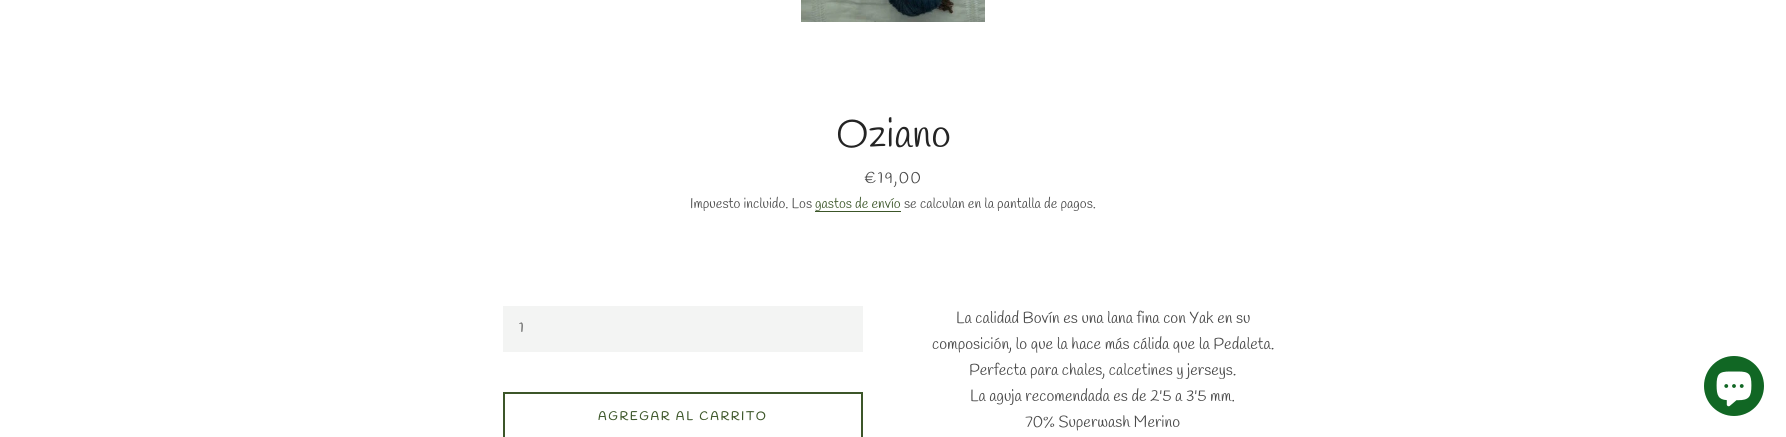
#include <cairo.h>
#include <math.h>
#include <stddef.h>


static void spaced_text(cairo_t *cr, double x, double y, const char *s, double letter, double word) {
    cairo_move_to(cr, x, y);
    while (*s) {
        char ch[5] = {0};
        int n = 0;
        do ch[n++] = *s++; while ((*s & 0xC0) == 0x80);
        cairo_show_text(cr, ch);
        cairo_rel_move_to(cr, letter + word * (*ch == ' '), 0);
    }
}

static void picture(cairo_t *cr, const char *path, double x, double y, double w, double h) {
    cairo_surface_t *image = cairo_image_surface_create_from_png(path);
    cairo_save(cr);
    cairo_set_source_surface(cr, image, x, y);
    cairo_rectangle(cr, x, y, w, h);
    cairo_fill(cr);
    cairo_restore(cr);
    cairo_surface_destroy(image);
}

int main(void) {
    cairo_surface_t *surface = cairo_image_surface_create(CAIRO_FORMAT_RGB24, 1786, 437);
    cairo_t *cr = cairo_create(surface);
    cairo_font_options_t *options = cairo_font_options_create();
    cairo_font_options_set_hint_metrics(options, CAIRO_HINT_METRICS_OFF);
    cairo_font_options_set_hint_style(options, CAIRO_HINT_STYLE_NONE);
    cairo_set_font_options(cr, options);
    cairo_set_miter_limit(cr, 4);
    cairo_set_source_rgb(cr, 1, 1, 1);
    cairo_paint(cr);
    picture(cr, "img1.png", 801, 0, 184, 22);
    cairo_select_font_face(cr, "Handlee", CAIRO_FONT_SLANT_NORMAL, CAIRO_FONT_WEIGHT_NORMAL);
    cairo_set_font_size(cr, 40);
    cairo_set_source_rgb(cr, 0.141, 0.141, 0.141);
    cairo_move_to(cr, 836, 147);
    cairo_show_text(cr, "Oziano");
    cairo_set_font_size(cr, 16);
    cairo_set_source_rgb(cr, 0.29, 0.29, 0.29);
    spaced_text(cr, 864, 183, "€19,00", 1.5, 0);
    cairo_set_font_size(cr, 14);
    cairo_move_to(cr, 690, 208);
    cairo_show_text(cr, "Impuesto incluido. Los");
    cairo_set_source_rgb(cr, 0.235, 0.337, 0.161);
    cairo_move_to(cr, 815, 208);
    cairo_show_text(cr, "gastos de envío");
    cairo_rectangle(cr, 815, 211, 86, 1);
    cairo_fill(cr);
    cairo_set_source_rgb(cr, 0.29, 0.29, 0.29);
    cairo_move_to(cr, 904, 208);
    cairo_show_text(cr, "se calculan en la pantalla de pagos.");
    cairo_set_source_rgb(cr, 0.953, 0.957, 0.953);
    cairo_rectangle(cr, 503, 306, 360, 46);
    cairo_fill(cr);
    cairo_set_source_rgb(cr, 0.29, 0.29, 0.29);
    cairo_move_to(cr, 519, 332);
    cairo_show_text(cr, "1");
    cairo_rectangle(cr, 504, 393, 358, 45);
    cairo_set_source_rgb(cr, 0.235, 0.337, 0.161);
    cairo_stroke(cr);
    cairo_select_font_face(cr, "Handlee", CAIRO_FONT_SLANT_NORMAL, CAIRO_FONT_WEIGHT_BOLD);
    cairo_set_font_size(cr, 12);
    spaced_text(cr, 598, 420, "AGREGAR AL CARRITO", 2, 0);
    cairo_select_font_face(cr, "Handlee", CAIRO_FONT_SLANT_NORMAL, CAIRO_FONT_WEIGHT_NORMAL);
    cairo_set_font_size(cr, 16);
    cairo_set_source_rgb(cr, 0.29, 0.29, 0.29);
    cairo_move_to(cr, 956, 323);
    cairo_show_text(cr, "La calidad Bovín es una lana fina con Yak en su");
    cairo_move_to(cr, 932, 349);
    cairo_show_text(cr, "composición, lo que la hace más cálida que la Pedaleta.");
    cairo_move_to(cr, 969, 375);
    cairo_show_text(cr, "Perfecta para chales, calcetines y jerseys.");
    cairo_move_to(cr, 970, 401);
    cairo_show_text(cr, "La aguja recomendada es de 2'5 a 3'5 mm.");
    cairo_move_to(cr, 1025, 427);
    cairo_show_text(cr, "70% Superwash Merino");
    cairo_set_source_rgb(cr, 0.067, 0.404, 0.141);
    cairo_new_path(cr);
    cairo_arc(cr, 1734, 386, 30, 0, 2 * M_PI);
    cairo_fill(cr);
    picture(cr, "img2.png", 1716, 371, 36, 36);
    cairo_surface_write_to_png(surface, "page.png");
    cairo_font_options_destroy(options);
    cairo_destroy(cr);
    cairo_surface_destroy(surface);
    return 0;
}
